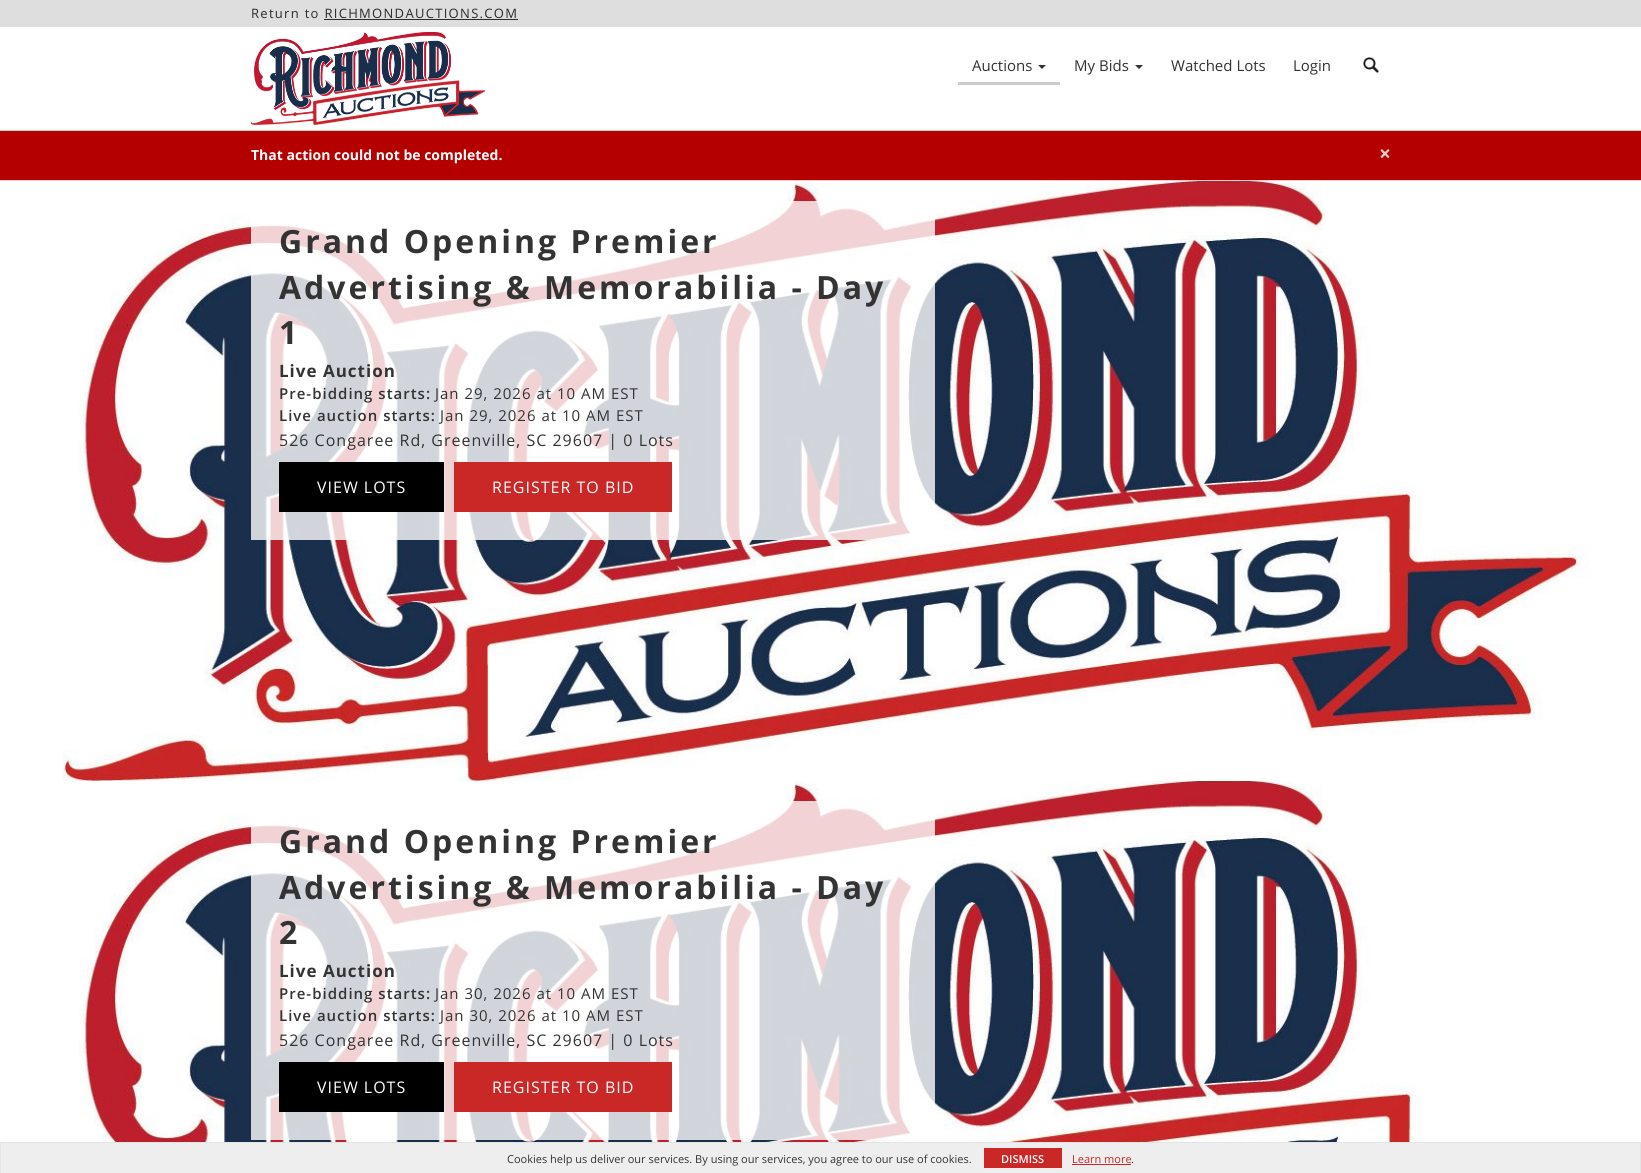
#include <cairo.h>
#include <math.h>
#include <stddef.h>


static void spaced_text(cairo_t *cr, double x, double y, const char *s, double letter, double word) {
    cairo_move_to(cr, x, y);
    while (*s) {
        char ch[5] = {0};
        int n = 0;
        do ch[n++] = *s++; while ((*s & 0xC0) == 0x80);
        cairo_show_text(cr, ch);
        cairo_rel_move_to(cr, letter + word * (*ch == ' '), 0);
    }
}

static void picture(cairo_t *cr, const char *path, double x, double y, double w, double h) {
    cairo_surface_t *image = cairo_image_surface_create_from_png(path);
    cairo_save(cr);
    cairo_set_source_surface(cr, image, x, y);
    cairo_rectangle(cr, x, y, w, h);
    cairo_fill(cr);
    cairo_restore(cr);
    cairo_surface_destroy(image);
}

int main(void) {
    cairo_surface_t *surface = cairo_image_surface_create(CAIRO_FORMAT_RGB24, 1641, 1173);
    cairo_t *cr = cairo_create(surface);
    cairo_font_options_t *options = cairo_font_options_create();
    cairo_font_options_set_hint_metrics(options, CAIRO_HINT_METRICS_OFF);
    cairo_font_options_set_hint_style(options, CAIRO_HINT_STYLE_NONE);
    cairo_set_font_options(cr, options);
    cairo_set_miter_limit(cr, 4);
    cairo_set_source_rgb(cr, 1, 1, 1);
    cairo_paint(cr);
    cairo_set_source_rgb(cr, 0.871, 0.871, 0.871);
    cairo_rectangle(cr, 0, 0, 1641, 27);
    cairo_fill(cr);
    cairo_select_font_face(cr, "Open Sans", CAIRO_FONT_SLANT_NORMAL, CAIRO_FONT_WEIGHT_NORMAL);
    cairo_set_font_size(cr, 13);
    cairo_set_source_rgb(cr, 0.169, 0.169, 0.169);
    spaced_text(cr, 251, 18, "Return to RICHMONDAUCTIONS.COM", 1.3, 0);
    cairo_rectangle(cr, 324, 19, 194, 1);
    cairo_fill(cr);
    picture(cr, "img1.png", 251, 31, 234, 95);
    cairo_set_source_rgb(cr, 0.8, 0.8, 0.8);
    cairo_rectangle(cr, 958, 82, 102, 3);
    cairo_fill(cr);
    cairo_set_font_size(cr, 15);
    cairo_set_source_rgb(cr, 0.2, 0.2, 0.2);
    cairo_move_to(cr, 972, 71);
    cairo_show_text(cr, "Auctions");
    cairo_new_path(cr);
    cairo_move_to(cr, 1038, 65);
    cairo_line_to(cr, 1046, 65);
    cairo_line_to(cr, 1042, 69);
    cairo_close_path(cr);
    cairo_fill(cr);
    cairo_move_to(cr, 1074, 71);
    cairo_show_text(cr, "My Bids");
    cairo_new_path(cr);
    cairo_move_to(cr, 1135, 65);
    cairo_line_to(cr, 1143, 65);
    cairo_line_to(cr, 1139, 69);
    cairo_close_path(cr);
    cairo_fill(cr);
    cairo_move_to(cr, 1171, 71);
    cairo_show_text(cr, "Watched Lots");
    cairo_move_to(cr, 1293, 71);
    cairo_show_text(cr, "Login");
    picture(cr, "img2.png", 1363, 57, 16, 16);
    cairo_set_source_rgb(cr, 0.8, 0.8, 0.8);
    cairo_rectangle(cr, 0, 130, 1641, 1);
    cairo_fill(cr);
    cairo_set_source_rgb(cr, 0.71, 0, 0);
    cairo_rectangle(cr, 0, 131, 1641, 49);
    cairo_fill(cr);
    cairo_set_source_rgb(cr, 0.922, 0.8, 0.82);
    cairo_rectangle(cr, 0, 180, 1641, 1);
    cairo_fill(cr);
    cairo_select_font_face(cr, "Open Sans", CAIRO_FONT_SLANT_NORMAL, CAIRO_FONT_WEIGHT_BOLD);
    cairo_set_font_size(cr, 14);
    cairo_set_source_rgb(cr, 1, 1, 1);
    cairo_move_to(cr, 251, 160);
    cairo_show_text(cr, "That action could not be completed.");
    cairo_set_font_size(cr, 21);
    cairo_set_source_rgb(cr, 0.941, 0.8, 0.8);
    cairo_move_to(cr, 1379, 161);
    cairo_show_text(cr, "×");
    picture(cr, "img3.png", 62, 181, 1528, 600);
    cairo_set_source_rgba(cr, 1, 1, 1, 0.8);
    cairo_rectangle(cr, 251, 201, 684, 339);
    cairo_fill(cr);
    cairo_set_font_size(cr, 32);
    cairo_set_source_rgb(cr, 0.2, 0.2, 0.2);
    spaced_text(cr, 279, 253, "Grand Opening Premier", 3, 0);
    spaced_text(cr, 279, 299, "Advertising & Memorabilia - Day", 3, 0);
    spaced_text(cr, 279, 344, "1", 3, 0);
    cairo_set_font_size(cr, 17);
    spaced_text(cr, 279, 377, "Live Auction", 1, 0);
    cairo_select_font_face(cr, "Open Sans SemiBold", CAIRO_FONT_SLANT_NORMAL, CAIRO_FONT_WEIGHT_NORMAL);
    cairo_set_font_size(cr, 15);
    spaced_text(cr, 279, 399, "Pre-bidding starts:", 1, 0);
    cairo_select_font_face(cr, "Open Sans", CAIRO_FONT_SLANT_NORMAL, CAIRO_FONT_WEIGHT_NORMAL);
    spaced_text(cr, 435, 399, "Jan 29, 2026 at 10 AM EST", 1, 0);
    cairo_select_font_face(cr, "Open Sans SemiBold", CAIRO_FONT_SLANT_NORMAL, CAIRO_FONT_WEIGHT_NORMAL);
    spaced_text(cr, 279, 421, "Live auction starts:", 1, 0);
    cairo_select_font_face(cr, "Open Sans", CAIRO_FONT_SLANT_NORMAL, CAIRO_FONT_WEIGHT_NORMAL);
    spaced_text(cr, 440, 421, "Jan 29, 2026 at 10 AM EST", 1, 0);
    cairo_set_font_size(cr, 16);
    spaced_text(cr, 279, 446, "526 Congaree Rd, Greenville, SC 29607 | 0 Lots", 1, 0);
    cairo_set_source_rgb(cr, 0, 0, 0);
    cairo_rectangle(cr, 279, 462, 165, 50);
    cairo_fill(cr);
    cairo_set_source_rgb(cr, 1, 1, 1);
    spaced_text(cr, 317, 493, "VIEW LOTS", 1, 0);
    cairo_set_source_rgb(cr, 0.788, 0.157, 0.153);
    cairo_rectangle(cr, 454, 462, 218, 50);
    cairo_fill(cr);
    cairo_set_source_rgb(cr, 1, 1, 1);
    spaced_text(cr, 492, 493, "REGISTER TO BID", 1, 0);
    picture(cr, "img4.png", 78, 781, 1512, 361);
    cairo_set_source_rgba(cr, 1, 1, 1, 0.8);
    cairo_rectangle(cr, 251, 801, 684, 339);
    cairo_fill(cr);
    cairo_select_font_face(cr, "Open Sans", CAIRO_FONT_SLANT_NORMAL, CAIRO_FONT_WEIGHT_BOLD);
    cairo_set_font_size(cr, 32);
    cairo_set_source_rgb(cr, 0.2, 0.2, 0.2);
    spaced_text(cr, 279, 853, "Grand Opening Premier", 3, 0);
    spaced_text(cr, 279, 899, "Advertising & Memorabilia - Day", 3, 0);
    spaced_text(cr, 279, 944, "2", 3, 0);
    cairo_set_font_size(cr, 17);
    spaced_text(cr, 279, 977, "Live Auction", 1, 0);
    cairo_select_font_face(cr, "Open Sans SemiBold", CAIRO_FONT_SLANT_NORMAL, CAIRO_FONT_WEIGHT_NORMAL);
    cairo_set_font_size(cr, 15);
    spaced_text(cr, 279, 999, "Pre-bidding starts:", 1, 0);
    cairo_select_font_face(cr, "Open Sans", CAIRO_FONT_SLANT_NORMAL, CAIRO_FONT_WEIGHT_NORMAL);
    spaced_text(cr, 435, 999, "Jan 30, 2026 at 10 AM EST", 1, 0);
    cairo_select_font_face(cr, "Open Sans SemiBold", CAIRO_FONT_SLANT_NORMAL, CAIRO_FONT_WEIGHT_NORMAL);
    spaced_text(cr, 279, 1021, "Live auction starts:", 1, 0);
    cairo_select_font_face(cr, "Open Sans", CAIRO_FONT_SLANT_NORMAL, CAIRO_FONT_WEIGHT_NORMAL);
    spaced_text(cr, 440, 1021, "Jan 30, 2026 at 10 AM EST", 1, 0);
    cairo_set_font_size(cr, 16);
    spaced_text(cr, 279, 1046, "526 Congaree Rd, Greenville, SC 29607 | 0 Lots", 1, 0);
    cairo_set_source_rgb(cr, 0, 0, 0);
    cairo_rectangle(cr, 279, 1062, 165, 50);
    cairo_fill(cr);
    cairo_set_source_rgb(cr, 1, 1, 1);
    spaced_text(cr, 317, 1093, "VIEW LOTS", 1, 0);
    cairo_set_source_rgb(cr, 0.788, 0.157, 0.153);
    cairo_rectangle(cr, 454, 1062, 218, 50);
    cairo_fill(cr);
    cairo_set_source_rgb(cr, 1, 1, 1);
    spaced_text(cr, 492, 1093, "REGISTER TO BID", 1, 0);
    cairo_set_source_rgb(cr, 0.933, 0.933, 0.933);
    cairo_rectangle(cr, 1, 1143, 1639, 30);
    cairo_fill(cr);
    cairo_set_source_rgb(cr, 0.894, 0.894, 0.894);
    cairo_rectangle(cr, 0, 1142, 1641, 1);
    cairo_fill(cr);
    cairo_rectangle(cr, 1640, 1142, 1, 31);
    cairo_fill(cr);
    cairo_rectangle(cr, 0, 1142, 1, 31);
    cairo_fill(cr);
    cairo_set_font_size(cr, 11);
    cairo_set_source_rgb(cr, 0.2, 0.2, 0.2);
    cairo_move_to(cr, 507, 1163);
    cairo_show_text(cr, "Cookies help us deliver our services. By using our services, you agree to our use of cookies.");
    cairo_set_source_rgb(cr, 0.788, 0.157, 0.153);
    cairo_rectangle(cr, 984, 1148, 78, 20);
    cairo_fill(cr);
    cairo_select_font_face(cr, "Open Sans SemiBold", CAIRO_FONT_SLANT_NORMAL, CAIRO_FONT_WEIGHT_NORMAL);
    cairo_set_source_rgb(cr, 1, 1, 1);
    cairo_move_to(cr, 1001, 1163);
    cairo_show_text(cr, "DISMISS");
    cairo_select_font_face(cr, "Open Sans", CAIRO_FONT_SLANT_NORMAL, CAIRO_FONT_WEIGHT_NORMAL);
    cairo_set_source_rgb(cr, 0.788, 0.157, 0.153);
    cairo_move_to(cr, 1072, 1163);
    cairo_show_text(cr, "Learn more");
    cairo_rectangle(cr, 1072, 1164, 59, 1);
    cairo_fill(cr);
    cairo_set_source_rgb(cr, 0.2, 0.2, 0.2);
    cairo_move_to(cr, 1131, 1163);
    cairo_show_text(cr, ".");
    cairo_surface_write_to_png(surface, "page.png");
    cairo_font_options_destroy(options);
    cairo_destroy(cr);
    cairo_surface_destroy(surface);
    return 0;
}
